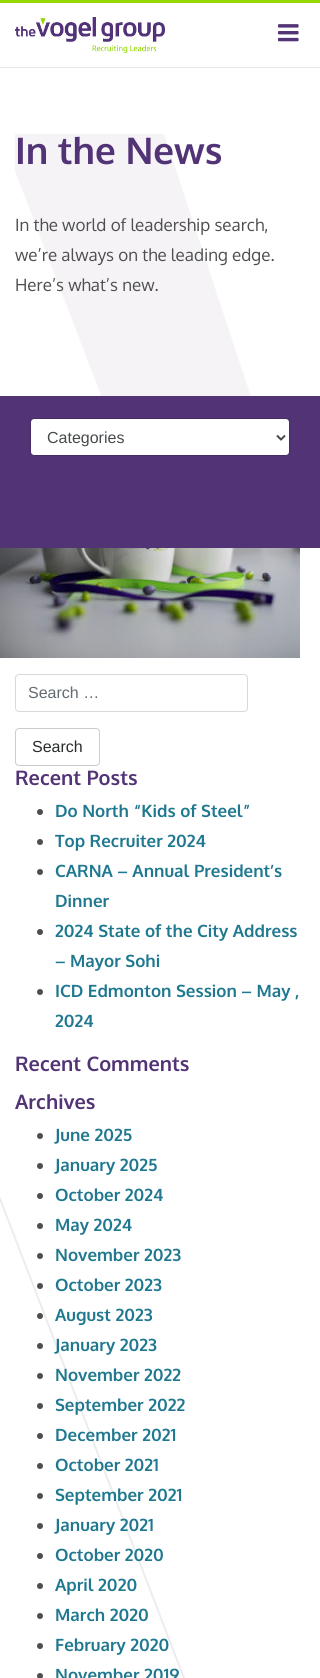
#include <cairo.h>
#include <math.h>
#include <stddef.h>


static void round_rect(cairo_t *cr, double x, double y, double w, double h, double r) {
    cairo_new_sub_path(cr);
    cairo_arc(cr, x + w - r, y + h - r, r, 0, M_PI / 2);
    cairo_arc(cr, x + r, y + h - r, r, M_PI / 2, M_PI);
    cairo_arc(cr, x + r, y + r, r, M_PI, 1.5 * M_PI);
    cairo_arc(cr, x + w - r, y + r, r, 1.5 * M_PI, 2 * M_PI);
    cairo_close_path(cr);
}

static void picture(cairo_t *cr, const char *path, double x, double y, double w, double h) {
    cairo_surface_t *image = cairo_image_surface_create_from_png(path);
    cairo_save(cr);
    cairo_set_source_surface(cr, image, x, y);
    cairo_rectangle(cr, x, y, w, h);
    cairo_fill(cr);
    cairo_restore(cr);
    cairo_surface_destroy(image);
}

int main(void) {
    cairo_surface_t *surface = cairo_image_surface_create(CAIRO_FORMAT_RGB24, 320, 1678);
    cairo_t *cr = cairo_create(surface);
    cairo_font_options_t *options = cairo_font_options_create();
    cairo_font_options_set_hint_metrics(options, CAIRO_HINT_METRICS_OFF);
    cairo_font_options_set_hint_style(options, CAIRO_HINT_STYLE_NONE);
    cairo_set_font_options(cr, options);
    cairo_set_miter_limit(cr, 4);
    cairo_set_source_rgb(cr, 1, 1, 1);
    cairo_paint(cr);
    picture(cr, "img1.png", 0, 1197, 185, 481);
    cairo_set_source_rgb(cr, 0.584, 0.847, 0.008);
    cairo_rectangle(cr, 0, 0, 320, 3);
    cairo_fill(cr);
    cairo_set_source_rgb(cr, 0.902, 0.91, 0.922);
    cairo_rectangle(cr, 0, 67, 320, 1);
    cairo_fill(cr);
    picture(cr, "img2.png", 15, 17, 150, 36);
    picture(cr, "img3.png", 278, 24, 21, 18);
    picture(cr, "img4.png", 15, 134, 236, 262);
    cairo_select_font_face(cr, "Oxygen", CAIRO_FONT_SLANT_NORMAL, CAIRO_FONT_WEIGHT_BOLD);
    cairo_set_font_size(cr, 36.75);
    cairo_set_source_rgb(cr, 0.322, 0.2, 0.463);
    cairo_move_to(cr, 15, 164);
    cairo_show_text(cr, "In the News");
    cairo_select_font_face(cr, "Oxygen", CAIRO_FONT_SLANT_NORMAL, CAIRO_FONT_WEIGHT_NORMAL);
    cairo_set_font_size(cr, 17);
    cairo_set_source_rgb(cr, 0.306, 0.306, 0.306);
    cairo_move_to(cr, 15, 231);
    cairo_show_text(cr, "In the world of leadership search,");
    cairo_move_to(cr, 15, 261);
    cairo_show_text(cr, "we’re always on the leading edge.");
    cairo_move_to(cr, 15, 291);
    cairo_show_text(cr, "Here’s what’s new.");
    cairo_set_source_rgb(cr, 0.322, 0.2, 0.463);
    cairo_rectangle(cr, 0, 396, 320, 152);
    cairo_fill(cr);
    cairo_set_source_rgb(cr, 1, 1, 1);
    round_rect(cr, 31, 419, 258, 36, 3);
    cairo_fill(cr);
    round_rect(cr, 30.5, 418.5, 259, 37, 3.5);
    cairo_set_source_rgba(cr, 0, 0, 0, 0.15);
    cairo_set_line_width(cr, 1);
    cairo_stroke(cr);
    cairo_new_path(cr);
    cairo_move_to(cr, 277, 435.5);
    cairo_line_to(cr, 281, 439.5);
    cairo_line_to(cr, 285, 435.5);
    cairo_set_source_rgb(cr, 0.275, 0.29, 0.298);
    cairo_set_line_width(cr, 2);
    cairo_stroke(cr);
    cairo_select_font_face(cr, "Liberation Sans", CAIRO_FONT_SLANT_NORMAL, CAIRO_FONT_WEIGHT_NORMAL);
    cairo_set_font_size(cr, 16);
    cairo_move_to(cr, 47, 443);
    cairo_show_text(cr, "Categories");
    picture(cr, "img5.png", 0, 548, 300, 110);
    round_rect(cr, 15.5, 674.5, 232, 37, 3.5);
    cairo_set_source_rgb(cr, 0.851, 0.851, 0.851);
    cairo_set_line_width(cr, 1);
    cairo_stroke(cr);
    cairo_set_source_rgb(cr, 0.388, 0.424, 0.447);
    cairo_move_to(cr, 28, 698);
    cairo_show_text(cr, "Search …");
    round_rect(cr, 15.5, 728.5, 84, 37, 3.5);
    cairo_set_source_rgb(cr, 0.8, 0.8, 0.8);
    cairo_stroke(cr);
    cairo_set_source_rgb(cr, 0.161, 0.169, 0.173);
    cairo_move_to(cr, 32, 752);
    cairo_show_text(cr, "Search");
    cairo_select_font_face(cr, "Oxygen", CAIRO_FONT_SLANT_NORMAL, CAIRO_FONT_WEIGHT_BOLD);
    cairo_set_font_size(cr, 20);
    cairo_set_source_rgb(cr, 0.322, 0.2, 0.463);
    cairo_move_to(cr, 15, 785);
    cairo_show_text(cr, "Recent Posts");
    cairo_set_source_rgb(cr, 0.306, 0.306, 0.306);
    cairo_new_path(cr);
    cairo_arc(cr, 40, 812, 3, 0, 2 * M_PI);
    cairo_fill(cr);
    cairo_set_font_size(cr, 17);
    cairo_set_source_rgb(cr, 0.122, 0.471, 0.565);
    cairo_move_to(cr, 55, 817);
    cairo_show_text(cr, "Do North “Kids of Steel”");
    cairo_set_source_rgb(cr, 0.306, 0.306, 0.306);
    cairo_new_path(cr);
    cairo_arc(cr, 40, 842, 3, 0, 2 * M_PI);
    cairo_fill(cr);
    cairo_set_source_rgb(cr, 0.122, 0.471, 0.565);
    cairo_move_to(cr, 55, 847);
    cairo_show_text(cr, "Top Recruiter 2024");
    cairo_set_source_rgb(cr, 0.306, 0.306, 0.306);
    cairo_new_path(cr);
    cairo_arc(cr, 40, 872, 3, 0, 2 * M_PI);
    cairo_fill(cr);
    cairo_set_source_rgb(cr, 0.122, 0.471, 0.565);
    cairo_move_to(cr, 55, 877);
    cairo_show_text(cr, "CARNA – Annual President’s");
    cairo_move_to(cr, 55, 907);
    cairo_show_text(cr, "Dinner");
    cairo_set_source_rgb(cr, 0.306, 0.306, 0.306);
    cairo_new_path(cr);
    cairo_arc(cr, 40, 932, 3, 0, 2 * M_PI);
    cairo_fill(cr);
    cairo_set_source_rgb(cr, 0.122, 0.471, 0.565);
    cairo_move_to(cr, 55, 937);
    cairo_show_text(cr, "2024 State of the City Address");
    cairo_move_to(cr, 55, 967);
    cairo_show_text(cr, "– Mayor Sohi");
    cairo_set_source_rgb(cr, 0.306, 0.306, 0.306);
    cairo_new_path(cr);
    cairo_arc(cr, 40, 992, 3, 0, 2 * M_PI);
    cairo_fill(cr);
    cairo_set_source_rgb(cr, 0.122, 0.471, 0.565);
    cairo_move_to(cr, 55, 997);
    cairo_show_text(cr, "ICD Edmonton Session – May ,");
    cairo_move_to(cr, 55, 1027);
    cairo_show_text(cr, "2024");
    cairo_set_font_size(cr, 20);
    cairo_set_source_rgb(cr, 0.322, 0.2, 0.463);
    cairo_move_to(cr, 15, 1071);
    cairo_show_text(cr, "Recent Comments");
    cairo_move_to(cr, 15, 1109);
    cairo_show_text(cr, "Archives");
    cairo_set_source_rgb(cr, 0.306, 0.306, 0.306);
    cairo_new_path(cr);
    cairo_arc(cr, 40, 1136, 3, 0, 2 * M_PI);
    cairo_fill(cr);
    cairo_set_font_size(cr, 17);
    cairo_set_source_rgb(cr, 0.122, 0.471, 0.565);
    cairo_move_to(cr, 55, 1141);
    cairo_show_text(cr, "June 2025");
    cairo_set_source_rgb(cr, 0.306, 0.306, 0.306);
    cairo_new_path(cr);
    cairo_arc(cr, 40, 1166, 3, 0, 2 * M_PI);
    cairo_fill(cr);
    cairo_set_source_rgb(cr, 0.122, 0.471, 0.565);
    cairo_move_to(cr, 55, 1171);
    cairo_show_text(cr, "January 2025");
    cairo_set_source_rgb(cr, 0.306, 0.306, 0.306);
    cairo_new_path(cr);
    cairo_arc(cr, 40, 1196, 3, 0, 2 * M_PI);
    cairo_fill(cr);
    cairo_set_source_rgb(cr, 0.122, 0.471, 0.565);
    cairo_move_to(cr, 55, 1201);
    cairo_show_text(cr, "October 2024");
    cairo_set_source_rgb(cr, 0.306, 0.306, 0.306);
    cairo_new_path(cr);
    cairo_arc(cr, 40, 1226, 3, 0, 2 * M_PI);
    cairo_fill(cr);
    cairo_set_source_rgb(cr, 0.122, 0.471, 0.565);
    cairo_move_to(cr, 55, 1231);
    cairo_show_text(cr, "May 2024");
    cairo_set_source_rgb(cr, 0.306, 0.306, 0.306);
    cairo_new_path(cr);
    cairo_arc(cr, 40, 1256, 3, 0, 2 * M_PI);
    cairo_fill(cr);
    cairo_set_source_rgb(cr, 0.122, 0.471, 0.565);
    cairo_move_to(cr, 55, 1261);
    cairo_show_text(cr, "November 2023");
    cairo_set_source_rgb(cr, 0.306, 0.306, 0.306);
    cairo_new_path(cr);
    cairo_arc(cr, 40, 1286, 3, 0, 2 * M_PI);
    cairo_fill(cr);
    cairo_set_source_rgb(cr, 0.122, 0.471, 0.565);
    cairo_move_to(cr, 55, 1291);
    cairo_show_text(cr, "October 2023");
    cairo_set_source_rgb(cr, 0.306, 0.306, 0.306);
    cairo_new_path(cr);
    cairo_arc(cr, 40, 1316, 3, 0, 2 * M_PI);
    cairo_fill(cr);
    cairo_set_source_rgb(cr, 0.122, 0.471, 0.565);
    cairo_move_to(cr, 55, 1321);
    cairo_show_text(cr, "August 2023");
    cairo_set_source_rgb(cr, 0.306, 0.306, 0.306);
    cairo_new_path(cr);
    cairo_arc(cr, 40, 1346, 3, 0, 2 * M_PI);
    cairo_fill(cr);
    cairo_set_source_rgb(cr, 0.122, 0.471, 0.565);
    cairo_move_to(cr, 55, 1351);
    cairo_show_text(cr, "January 2023");
    cairo_set_source_rgb(cr, 0.306, 0.306, 0.306);
    cairo_new_path(cr);
    cairo_arc(cr, 40, 1376, 3, 0, 2 * M_PI);
    cairo_fill(cr);
    cairo_set_source_rgb(cr, 0.122, 0.471, 0.565);
    cairo_move_to(cr, 55, 1381);
    cairo_show_text(cr, "November 2022");
    cairo_set_source_rgb(cr, 0.306, 0.306, 0.306);
    cairo_new_path(cr);
    cairo_arc(cr, 40, 1406, 3, 0, 2 * M_PI);
    cairo_fill(cr);
    cairo_set_source_rgb(cr, 0.122, 0.471, 0.565);
    cairo_move_to(cr, 55, 1411);
    cairo_show_text(cr, "September 2022");
    cairo_set_source_rgb(cr, 0.306, 0.306, 0.306);
    cairo_new_path(cr);
    cairo_arc(cr, 40, 1436, 3, 0, 2 * M_PI);
    cairo_fill(cr);
    cairo_set_source_rgb(cr, 0.122, 0.471, 0.565);
    cairo_move_to(cr, 55, 1441);
    cairo_show_text(cr, "December 2021");
    cairo_set_source_rgb(cr, 0.306, 0.306, 0.306);
    cairo_new_path(cr);
    cairo_arc(cr, 40, 1466, 3, 0, 2 * M_PI);
    cairo_fill(cr);
    cairo_set_source_rgb(cr, 0.122, 0.471, 0.565);
    cairo_move_to(cr, 55, 1471);
    cairo_show_text(cr, "October 2021");
    cairo_set_source_rgb(cr, 0.306, 0.306, 0.306);
    cairo_new_path(cr);
    cairo_arc(cr, 40, 1496, 3, 0, 2 * M_PI);
    cairo_fill(cr);
    cairo_set_source_rgb(cr, 0.122, 0.471, 0.565);
    cairo_move_to(cr, 55, 1501);
    cairo_show_text(cr, "September 2021");
    cairo_set_source_rgb(cr, 0.306, 0.306, 0.306);
    cairo_new_path(cr);
    cairo_arc(cr, 40, 1526, 3, 0, 2 * M_PI);
    cairo_fill(cr);
    cairo_set_source_rgb(cr, 0.122, 0.471, 0.565);
    cairo_move_to(cr, 55, 1531);
    cairo_show_text(cr, "January 2021");
    cairo_set_source_rgb(cr, 0.306, 0.306, 0.306);
    cairo_new_path(cr);
    cairo_arc(cr, 40, 1556, 3, 0, 2 * M_PI);
    cairo_fill(cr);
    cairo_set_source_rgb(cr, 0.122, 0.471, 0.565);
    cairo_move_to(cr, 55, 1561);
    cairo_show_text(cr, "October 2020");
    cairo_set_source_rgb(cr, 0.306, 0.306, 0.306);
    cairo_new_path(cr);
    cairo_arc(cr, 40, 1586, 3, 0, 2 * M_PI);
    cairo_fill(cr);
    cairo_set_source_rgb(cr, 0.122, 0.471, 0.565);
    cairo_move_to(cr, 55, 1591);
    cairo_show_text(cr, "April 2020");
    cairo_set_source_rgb(cr, 0.306, 0.306, 0.306);
    cairo_new_path(cr);
    cairo_arc(cr, 40, 1616, 3, 0, 2 * M_PI);
    cairo_fill(cr);
    cairo_set_source_rgb(cr, 0.122, 0.471, 0.565);
    cairo_move_to(cr, 55, 1621);
    cairo_show_text(cr, "March 2020");
    cairo_set_source_rgb(cr, 0.306, 0.306, 0.306);
    cairo_new_path(cr);
    cairo_arc(cr, 40, 1646, 3, 0, 2 * M_PI);
    cairo_fill(cr);
    cairo_set_source_rgb(cr, 0.122, 0.471, 0.565);
    cairo_move_to(cr, 55, 1651);
    cairo_show_text(cr, "February 2020");
    cairo_set_source_rgb(cr, 0.306, 0.306, 0.306);
    cairo_new_path(cr);
    cairo_arc(cr, 40, 1676, 3, 0, 2 * M_PI);
    cairo_fill(cr);
    cairo_set_source_rgb(cr, 0.122, 0.471, 0.565);
    cairo_move_to(cr, 55, 1681);
    cairo_show_text(cr, "November 2019");
    cairo_surface_write_to_png(surface, "page.png");
    cairo_font_options_destroy(options);
    cairo_destroy(cr);
    cairo_surface_destroy(surface);
    return 0;
}
